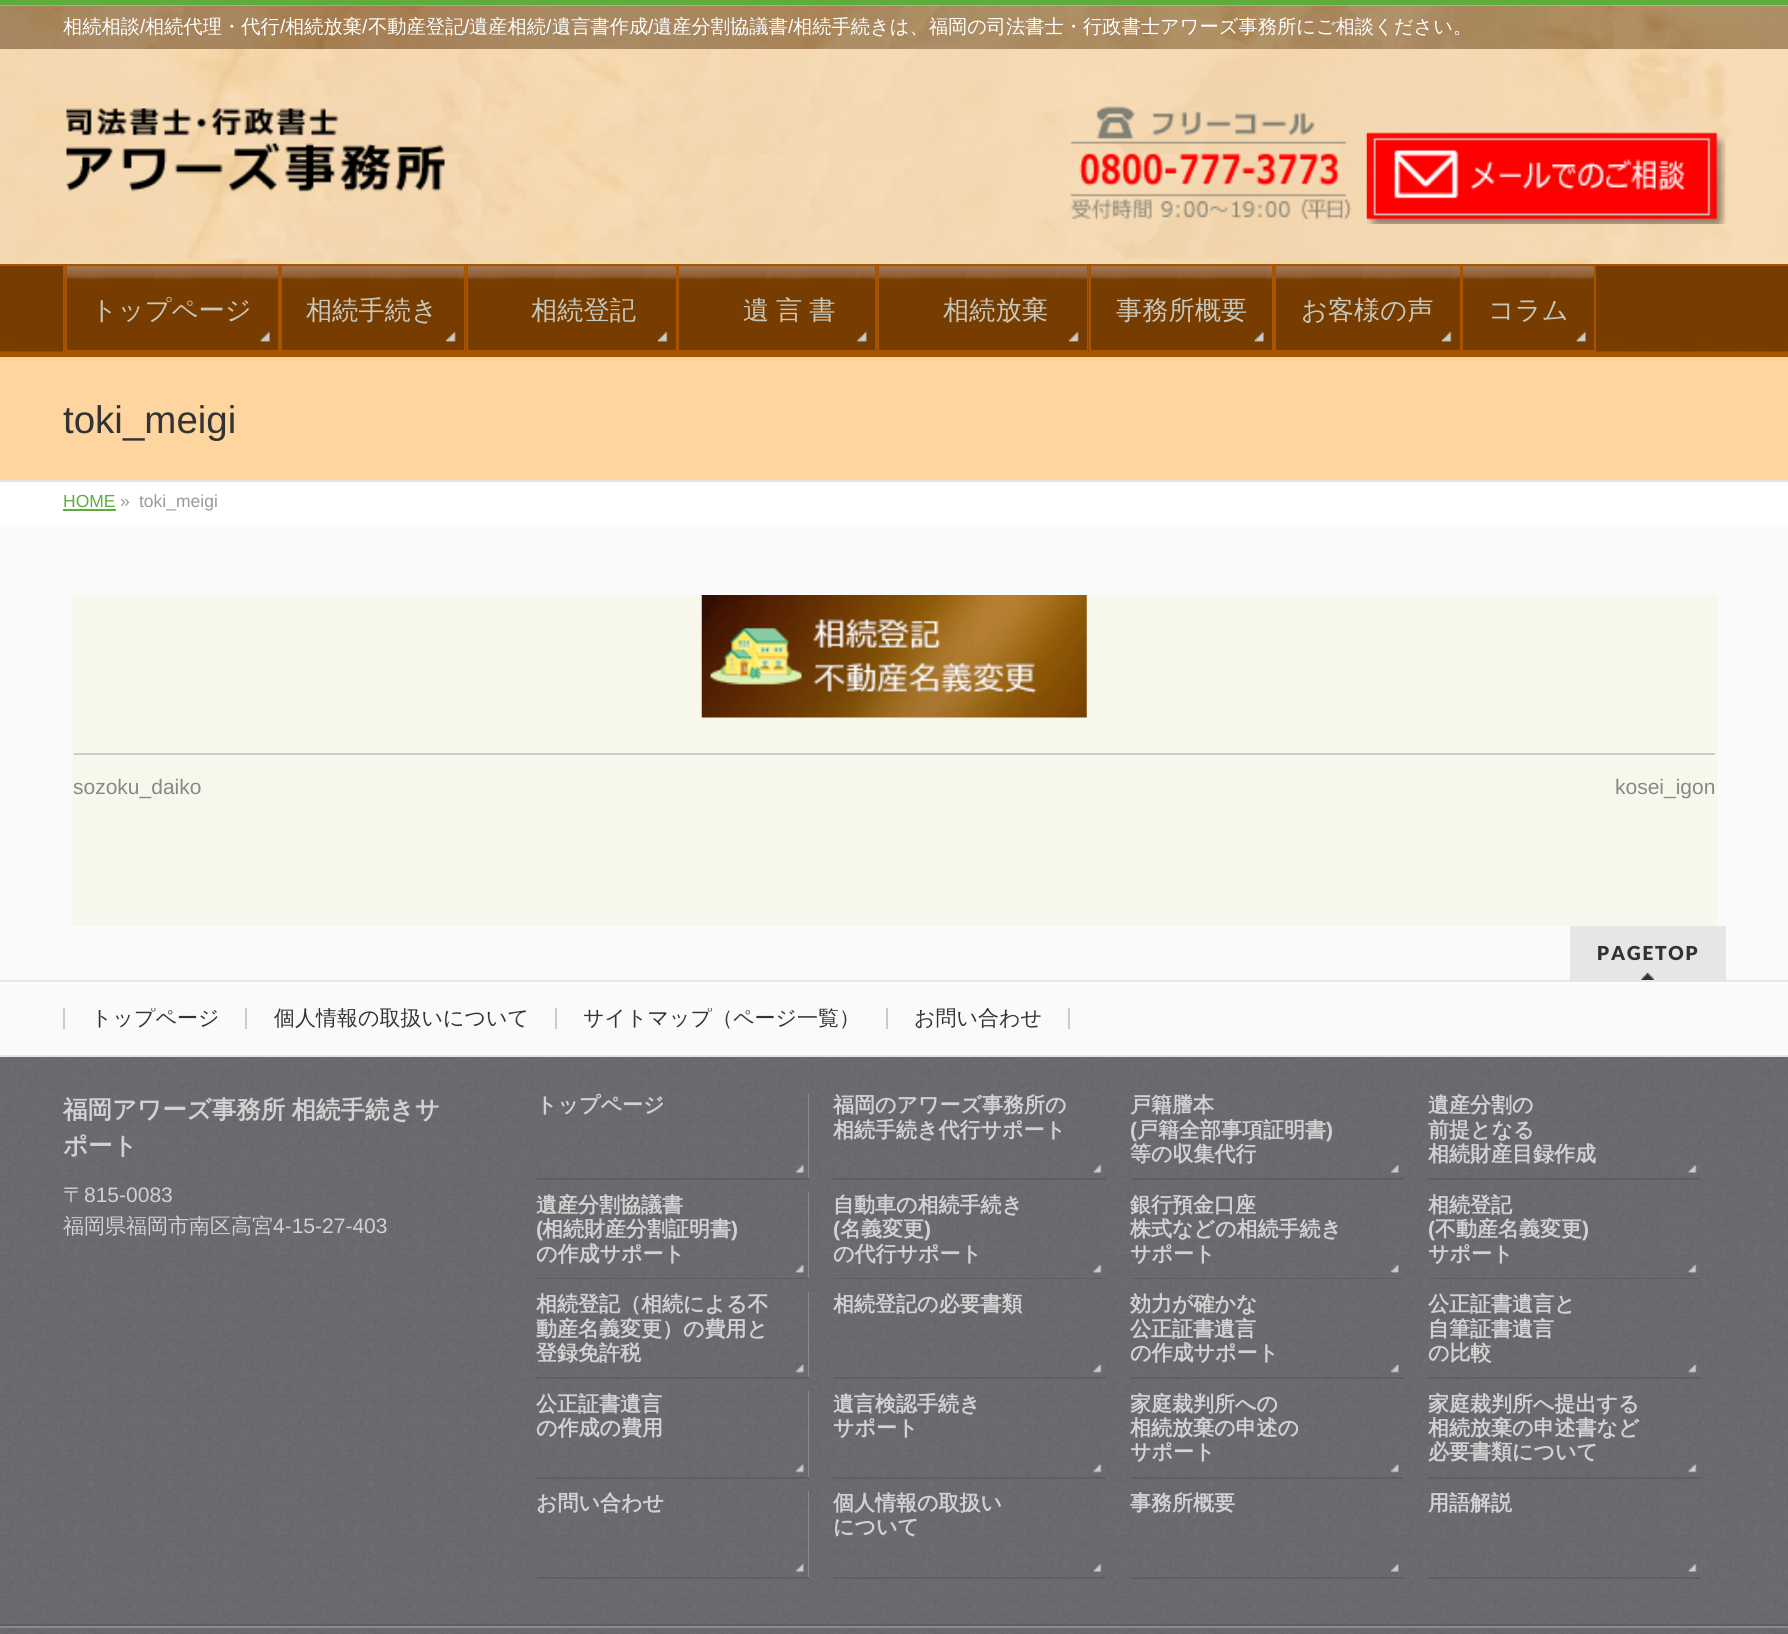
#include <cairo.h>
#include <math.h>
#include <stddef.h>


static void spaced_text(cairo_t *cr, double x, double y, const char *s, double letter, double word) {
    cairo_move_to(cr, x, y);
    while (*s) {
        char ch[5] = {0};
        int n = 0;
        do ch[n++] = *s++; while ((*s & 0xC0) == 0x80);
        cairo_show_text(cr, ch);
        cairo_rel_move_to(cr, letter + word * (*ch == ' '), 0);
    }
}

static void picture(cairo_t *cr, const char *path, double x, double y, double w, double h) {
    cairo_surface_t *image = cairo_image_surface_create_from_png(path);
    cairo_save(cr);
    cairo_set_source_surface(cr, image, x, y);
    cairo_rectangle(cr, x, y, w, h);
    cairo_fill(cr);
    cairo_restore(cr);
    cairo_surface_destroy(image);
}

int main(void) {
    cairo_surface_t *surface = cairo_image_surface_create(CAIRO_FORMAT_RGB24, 1788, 1634);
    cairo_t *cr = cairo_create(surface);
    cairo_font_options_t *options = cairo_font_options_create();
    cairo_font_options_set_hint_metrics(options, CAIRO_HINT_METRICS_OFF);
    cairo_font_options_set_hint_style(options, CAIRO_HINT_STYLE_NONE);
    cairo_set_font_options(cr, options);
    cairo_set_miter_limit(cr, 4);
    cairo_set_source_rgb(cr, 1, 1, 1);
    cairo_paint(cr);
    picture(cr, "img1.png", 0, 5, 1788, 44);
    cairo_set_source_rgb(cr, 0.369, 0.678, 0.235);
    cairo_rectangle(cr, 0, 0, 1788, 5);
    cairo_fill(cr);
    cairo_select_font_face(cr, "WenQuanYi Zen Hei Medium", CAIRO_FONT_SLANT_NORMAL, CAIRO_FONT_WEIGHT_NORMAL);
    cairo_set_font_size(cr, 19.25);
    cairo_set_source_rgb(cr, 1, 1, 1);
    cairo_move_to(cr, 63, 33);
    cairo_show_text(cr, "相続相談");
    cairo_select_font_face(cr, "Liberation Sans", CAIRO_FONT_SLANT_NORMAL, CAIRO_FONT_WEIGHT_NORMAL);
    cairo_move_to(cr, 140, 33);
    cairo_show_text(cr, "/");
    cairo_select_font_face(cr, "WenQuanYi Zen Hei Medium", CAIRO_FONT_SLANT_NORMAL, CAIRO_FONT_WEIGHT_NORMAL);
    cairo_move_to(cr, 145, 33);
    cairo_show_text(cr, "相続代理・代行");
    cairo_select_font_face(cr, "Liberation Sans", CAIRO_FONT_SLANT_NORMAL, CAIRO_FONT_WEIGHT_NORMAL);
    cairo_move_to(cr, 280, 33);
    cairo_show_text(cr, "/");
    cairo_select_font_face(cr, "WenQuanYi Zen Hei Medium", CAIRO_FONT_SLANT_NORMAL, CAIRO_FONT_WEIGHT_NORMAL);
    cairo_move_to(cr, 285, 33);
    cairo_show_text(cr, "相続放棄");
    cairo_select_font_face(cr, "Liberation Sans", CAIRO_FONT_SLANT_NORMAL, CAIRO_FONT_WEIGHT_NORMAL);
    cairo_move_to(cr, 362, 33);
    cairo_show_text(cr, "/");
    cairo_select_font_face(cr, "WenQuanYi Zen Hei Medium", CAIRO_FONT_SLANT_NORMAL, CAIRO_FONT_WEIGHT_NORMAL);
    cairo_move_to(cr, 368, 33);
    cairo_show_text(cr, "不動産登記");
    cairo_select_font_face(cr, "Liberation Sans", CAIRO_FONT_SLANT_NORMAL, CAIRO_FONT_WEIGHT_NORMAL);
    cairo_move_to(cr, 464, 33);
    cairo_show_text(cr, "/");
    cairo_select_font_face(cr, "WenQuanYi Zen Hei Medium", CAIRO_FONT_SLANT_NORMAL, CAIRO_FONT_WEIGHT_NORMAL);
    cairo_move_to(cr, 469, 33);
    cairo_show_text(cr, "遺産相続");
    cairo_select_font_face(cr, "Liberation Sans", CAIRO_FONT_SLANT_NORMAL, CAIRO_FONT_WEIGHT_NORMAL);
    cairo_move_to(cr, 546, 33);
    cairo_show_text(cr, "/");
    cairo_select_font_face(cr, "WenQuanYi Zen Hei Medium", CAIRO_FONT_SLANT_NORMAL, CAIRO_FONT_WEIGHT_NORMAL);
    cairo_move_to(cr, 552, 33);
    cairo_show_text(cr, "遺言書作成");
    cairo_select_font_face(cr, "Liberation Sans", CAIRO_FONT_SLANT_NORMAL, CAIRO_FONT_WEIGHT_NORMAL);
    cairo_move_to(cr, 648, 33);
    cairo_show_text(cr, "/");
    cairo_select_font_face(cr, "WenQuanYi Zen Hei Medium", CAIRO_FONT_SLANT_NORMAL, CAIRO_FONT_WEIGHT_NORMAL);
    cairo_move_to(cr, 653, 33);
    cairo_show_text(cr, "遺産分割協議書");
    cairo_select_font_face(cr, "Liberation Sans", CAIRO_FONT_SLANT_NORMAL, CAIRO_FONT_WEIGHT_NORMAL);
    cairo_move_to(cr, 788, 33);
    cairo_show_text(cr, "/");
    cairo_select_font_face(cr, "WenQuanYi Zen Hei Medium", CAIRO_FONT_SLANT_NORMAL, CAIRO_FONT_WEIGHT_NORMAL);
    cairo_move_to(cr, 793, 33);
    cairo_show_text(cr, "相続手続きは、福岡の司法書士・行政書士アワーズ事務所にご相談ください。");
    picture(cr, "img2.png", 0, 49, 1788, 215);
    picture(cr, "img3.png", 66, 108, 379, 84);
    picture(cr, "img4.png", 1070, 106, 282, 114);
    picture(cr, "img5.png", 1366, 132, 360, 92);
    picture(cr, "img6.png", 0, 266, 1788, 86);
    cairo_set_source_rgb(cr, 0.659, 0.329, 0);
    cairo_rectangle(cr, 0, 264, 1788, 2);
    cairo_fill(cr);
    cairo_rectangle(cr, 0, 352, 1788, 5);
    cairo_fill(cr);
    cairo_rectangle(cr, 63, 266, 2, 86);
    cairo_fill(cr);
    picture(cr, "img7.png", 64, 266, 214, 86);
    picture(cr, "img8.png", 260, 332, 10, 10);
    cairo_rectangle(cr, 65, 266, 2, 84);
    cairo_fill(cr);
    cairo_rectangle(cr, 278, 266, 2, 86);
    cairo_fill(cr);
    cairo_rectangle(cr, 65, 350, 215, 2);
    cairo_fill(cr);
    cairo_set_font_size(cr, 26.25);
    cairo_set_source_rgb(cr, 0.78, 0.78, 0.733);
    cairo_move_to(cr, 91, 319);
    cairo_show_text(cr, "トップページ");
    picture(cr, "img9.png", 282, 266, 182, 84);
    picture(cr, "img10.png", 446, 332, 10, 10);
    cairo_set_source_rgb(cr, 0.659, 0.329, 0);
    cairo_rectangle(cr, 280, 266, 2, 84);
    cairo_fill(cr);
    cairo_rectangle(cr, 464, 266, 2, 86);
    cairo_fill(cr);
    cairo_rectangle(cr, 280, 350, 186, 2);
    cairo_fill(cr);
    cairo_set_source_rgb(cr, 0.78, 0.78, 0.733);
    cairo_move_to(cr, 306, 319);
    cairo_show_text(cr, "相続手続き");
    picture(cr, "img11.png", 465, 266, 211, 86);
    picture(cr, "img12.png", 658, 332, 10, 10);
    cairo_set_source_rgb(cr, 0.659, 0.329, 0);
    cairo_rectangle(cr, 466, 266, 2, 84);
    cairo_fill(cr);
    cairo_rectangle(cr, 676, 266, 1, 86);
    cairo_fill(cr);
    cairo_rectangle(cr, 466, 350, 211, 2);
    cairo_fill(cr);
    cairo_set_source_rgb(cr, 0.78, 0.78, 0.733);
    cairo_move_to(cr, 531, 319);
    cairo_show_text(cr, "相続登記");
    picture(cr, "img13.png", 679, 266, 196, 84);
    picture(cr, "img14.png", 857, 332, 10, 10);
    cairo_set_source_rgb(cr, 0.659, 0.329, 0);
    cairo_rectangle(cr, 677, 266, 2, 84);
    cairo_fill(cr);
    cairo_rectangle(cr, 875, 266, 2, 86);
    cairo_fill(cr);
    cairo_rectangle(cr, 677, 350, 200, 2);
    cairo_fill(cr);
    cairo_set_source_rgb(cr, 0.78, 0.78, 0.733);
    spaced_text(cr, 743, 319, "遺 言 書", 0, -1);
    picture(cr, "img15.png", 876, 266, 211, 86);
    picture(cr, "img16.png", 1069, 332, 10, 10);
    cairo_set_source_rgb(cr, 0.659, 0.329, 0);
    cairo_rectangle(cr, 877, 266, 2, 84);
    cairo_fill(cr);
    cairo_rectangle(cr, 1087, 266, 2, 86);
    cairo_fill(cr);
    cairo_rectangle(cr, 877, 350, 212, 2);
    cairo_fill(cr);
    cairo_set_source_rgb(cr, 0.78, 0.78, 0.733);
    cairo_move_to(cr, 943, 319);
    cairo_show_text(cr, "相続放棄");
    picture(cr, "img17.png", 1088, 266, 184, 86);
    picture(cr, "img8.png", 1254, 332, 10, 10);
    cairo_set_source_rgb(cr, 0.659, 0.329, 0);
    cairo_rectangle(cr, 1089, 266, 2, 84);
    cairo_fill(cr);
    cairo_rectangle(cr, 1272, 266, 2, 86);
    cairo_fill(cr);
    cairo_rectangle(cr, 1089, 350, 185, 2);
    cairo_fill(cr);
    cairo_set_source_rgb(cr, 0.78, 0.78, 0.733);
    cairo_move_to(cr, 1116, 319);
    cairo_show_text(cr, "事務所概要");
    picture(cr, "img18.png", 1276, 266, 184, 84);
    picture(cr, "img19.png", 1442, 332, 10, 10);
    cairo_set_source_rgb(cr, 0.659, 0.329, 0);
    cairo_rectangle(cr, 1274, 266, 2, 84);
    cairo_fill(cr);
    cairo_rectangle(cr, 1460, 266, 1, 86);
    cairo_fill(cr);
    cairo_rectangle(cr, 1274, 350, 187, 2);
    cairo_fill(cr);
    cairo_set_source_rgb(cr, 0.78, 0.78, 0.733);
    cairo_move_to(cr, 1301, 319);
    cairo_show_text(cr, "お客様の声");
    picture(cr, "img20.png", 1463, 266, 131, 84);
    picture(cr, "img8.png", 1576, 332, 10, 10);
    cairo_set_source_rgb(cr, 0.659, 0.329, 0);
    cairo_rectangle(cr, 1461, 266, 2, 84);
    cairo_fill(cr);
    cairo_rectangle(cr, 1594, 266, 2, 86);
    cairo_fill(cr);
    cairo_rectangle(cr, 1461, 350, 135, 2);
    cairo_fill(cr);
    cairo_set_source_rgb(cr, 0.78, 0.78, 0.733);
    cairo_move_to(cr, 1488, 319);
    cairo_show_text(cr, "コラム");
    cairo_set_source_rgb(cr, 1, 0.835, 0.624);
    cairo_rectangle(cr, 0, 357, 1788, 123);
    cairo_fill(cr);
    cairo_set_source_rgb(cr, 0.898, 0.898, 0.898);
    cairo_rectangle(cr, 0, 480, 1788, 2);
    cairo_fill(cr);
    cairo_select_font_face(cr, "Liberation Sans", CAIRO_FONT_SLANT_NORMAL, CAIRO_FONT_WEIGHT_NORMAL);
    cairo_set_font_size(cr, 38.5);
    cairo_set_source_rgb(cr, 0.2, 0.2, 0.2);
    cairo_move_to(cr, 63, 433);
    cairo_show_text(cr, "toki_meigi");
    cairo_set_font_size(cr, 17.5);
    cairo_set_source_rgb(cr, 0.369, 0.678, 0.235);
    cairo_move_to(cr, 63, 507);
    cairo_show_text(cr, "HOME");
    cairo_rectangle(cr, 63, 509, 53, 2);
    cairo_fill(cr);
    cairo_set_source_rgb(cr, 0.6, 0.6, 0.6);
    cairo_move_to(cr, 120, 507);
    cairo_show_text(cr, "»");
    cairo_move_to(cr, 139, 507);
    cairo_show_text(cr, "toki_meigi");
    cairo_set_source_rgb(cr, 0.98, 0.98, 0.98);
    cairo_rectangle(cr, 0, 525, 1788, 455);
    cairo_fill(cr);
    cairo_set_source_rgb(cr, 0.969, 0.965, 0.922);
    cairo_rectangle(cr, 72, 595, 1645, 331);
    cairo_fill(cr);
    picture(cr, "img21.png", 701, 595, 386, 123);
    cairo_set_source_rgb(cr, 0.8, 0.8, 0.8);
    cairo_rectangle(cr, 74, 753, 1641, 2);
    cairo_fill(cr);
    cairo_set_font_size(cr, 21);
    cairo_set_source_rgb(cr, 0.533, 0.533, 0.533);
    cairo_move_to(cr, 73, 794);
    cairo_show_text(cr, "sozoku_daiko");
    cairo_move_to(cr, 1615, 794);
    cairo_show_text(cr, "kosei_igon");
    cairo_set_source_rgb(cr, 0.902, 0.902, 0.902);
    cairo_rectangle(cr, 1570, 926, 156, 54);
    cairo_fill(cr);
    picture(cr, "img22.png", 1641, 973, 13, 7);
    cairo_select_font_face(cr, "Lato Black", CAIRO_FONT_SLANT_NORMAL, CAIRO_FONT_WEIGHT_NORMAL);
    cairo_set_font_size(cr, 19.25);
    cairo_set_source_rgb(cr, 0.2, 0.2, 0.2);
    spaced_text(cr, 1597, 960, "PAGETOP", 1.75, 0);
    cairo_set_source_rgb(cr, 0.98, 0.98, 0.98);
    cairo_rectangle(cr, 0, 984, 1788, 71);
    cairo_fill(cr);
    cairo_set_source_rgb(cr, 0.902, 0.902, 0.902);
    cairo_rectangle(cr, 0, 980, 1788, 2);
    cairo_fill(cr);
    cairo_rectangle(cr, 0, 1055, 1788, 2);
    cairo_fill(cr);
    cairo_set_source_rgb(cr, 0.8, 0.8, 0.8);
    cairo_rectangle(cr, 245, 1008, 2, 21);
    cairo_fill(cr);
    cairo_rectangle(cr, 63, 1008, 2, 21);
    cairo_fill(cr);
    cairo_save(cr);
    cairo_rectangle(cr, 65, 1008, 180, 21);
    cairo_clip(cr);
    cairo_select_font_face(cr, "WenQuanYi Zen Hei Medium", CAIRO_FONT_SLANT_NORMAL, CAIRO_FONT_WEIGHT_NORMAL);
    cairo_set_font_size(cr, 21);
    cairo_set_source_rgb(cr, 0.2, 0.2, 0.2);
    cairo_move_to(cr, 91, 1025);
    cairo_show_text(cr, "トップページ");
    cairo_restore(cr);
    cairo_rectangle(cr, 555, 1008, 2, 21);
    cairo_fill(cr);
    cairo_save(cr);
    cairo_rectangle(cr, 247, 1008, 308, 21);
    cairo_clip(cr);
    cairo_select_font_face(cr, "WenQuanYi Zen Hei Medium", CAIRO_FONT_SLANT_NORMAL, CAIRO_FONT_WEIGHT_NORMAL);
    cairo_set_font_size(cr, 21);
    cairo_set_source_rgb(cr, 0.2, 0.2, 0.2);
    cairo_move_to(cr, 274, 1025);
    cairo_show_text(cr, "個人情報の取扱いについて");
    cairo_restore(cr);
    cairo_rectangle(cr, 886, 1008, 2, 21);
    cairo_fill(cr);
    cairo_save(cr);
    cairo_rectangle(cr, 557, 1008, 329, 21);
    cairo_clip(cr);
    cairo_select_font_face(cr, "WenQuanYi Zen Hei Medium", CAIRO_FONT_SLANT_NORMAL, CAIRO_FONT_WEIGHT_NORMAL);
    cairo_set_font_size(cr, 21);
    cairo_set_source_rgb(cr, 0.2, 0.2, 0.2);
    cairo_move_to(cr, 583, 1025);
    cairo_show_text(cr, "サイトマップ（ページ一覧）");
    cairo_restore(cr);
    cairo_rectangle(cr, 1068, 1008, 2, 21);
    cairo_fill(cr);
    cairo_select_font_face(cr, "WenQuanYi Zen Hei Medium", CAIRO_FONT_SLANT_NORMAL, CAIRO_FONT_WEIGHT_NORMAL);
    cairo_set_font_size(cr, 21);
    cairo_set_source_rgb(cr, 0.2, 0.2, 0.2);
    cairo_move_to(cr, 914, 1025);
    cairo_show_text(cr, "お問い合わせ");
    picture(cr, "img23.png", 0, 1057, 1788, 567);
    cairo_set_source_rgb(cr, 0.373, 0.369, 0.388);
    cairo_rectangle(cr, 0, 1624, 1788, 2);
    cairo_fill(cr);
    cairo_select_font_face(cr, "WenQuanYi Zen Hei", CAIRO_FONT_SLANT_NORMAL, CAIRO_FONT_WEIGHT_BOLD);
    cairo_set_font_size(cr, 24.5);
    cairo_set_source_rgb(cr, 0.824, 0.824, 0.827);
    spaced_text(cr, 63, 1118, "福岡アワーズ事務所 相続手続きサ", 0, -1);
    cairo_move_to(cr, 63, 1154);
    cairo_show_text(cr, "ポート");
    cairo_select_font_face(cr, "WenQuanYi Zen Hei Medium", CAIRO_FONT_SLANT_NORMAL, CAIRO_FONT_WEIGHT_NORMAL);
    cairo_set_font_size(cr, 21);
    cairo_move_to(cr, 63, 1202);
    cairo_show_text(cr, "〒");
    cairo_select_font_face(cr, "Liberation Sans", CAIRO_FONT_SLANT_NORMAL, CAIRO_FONT_WEIGHT_NORMAL);
    cairo_move_to(cr, 84, 1202);
    cairo_show_text(cr, "815-0083");
    cairo_select_font_face(cr, "WenQuanYi Zen Hei Medium", CAIRO_FONT_SLANT_NORMAL, CAIRO_FONT_WEIGHT_NORMAL);
    cairo_move_to(cr, 63, 1233);
    cairo_show_text(cr, "福岡県福岡市南区高宮");
    cairo_select_font_face(cr, "Liberation Sans", CAIRO_FONT_SLANT_NORMAL, CAIRO_FONT_WEIGHT_NORMAL);
    cairo_move_to(cr, 273, 1233);
    cairo_show_text(cr, "4-15-27-403");
    cairo_save(cr);
    cairo_rectangle(cr, 536, 1092, 273, 88);
    cairo_clip(cr);
    cairo_set_source_rgb(cr, 0.541, 0.537, 0.549);
    cairo_new_path(cr);
    cairo_move_to(cr, 536, 1180);
    cairo_line_to(cr, 536, 1181);
    cairo_line_to(cr, 809, 1181);
    cairo_line_to(cr, 809, 1094);
    cairo_line_to(cr, 808, 1094);
    cairo_line_to(cr, 808, 1180);
    cairo_close_path(cr);
    cairo_fill(cr);
    cairo_restore(cr);
    picture(cr, "img24.png", 796, 1165, 8, 8);
    cairo_set_source_rgb(cr, 0.373, 0.369, 0.388);
    cairo_rectangle(cr, 536, 1178, 273, 2);
    cairo_fill(cr);
    cairo_select_font_face(cr, "WenQuanYi Zen Hei", CAIRO_FONT_SLANT_NORMAL, CAIRO_FONT_WEIGHT_BOLD);
    cairo_set_source_rgb(cr, 0.824, 0.824, 0.827);
    cairo_move_to(cr, 536, 1112);
    cairo_show_text(cr, "トップページ");
    picture(cr, "img25.png", 1093, 1165, 9, 8);
    cairo_set_source_rgb(cr, 0.373, 0.369, 0.388);
    cairo_rectangle(cr, 833, 1178, 273, 2);
    cairo_fill(cr);
    cairo_set_source_rgb(cr, 0.824, 0.824, 0.827);
    cairo_move_to(cr, 833, 1112);
    cairo_show_text(cr, "福岡のアワーズ事務所の");
    cairo_move_to(cr, 833, 1137);
    cairo_show_text(cr, "相続手続き代行サポート");
    picture(cr, "img26.png", 1391, 1165, 8, 8);
    cairo_set_source_rgb(cr, 0.373, 0.369, 0.388);
    cairo_rectangle(cr, 1131, 1178, 273, 2);
    cairo_fill(cr);
    cairo_set_source_rgb(cr, 0.824, 0.824, 0.827);
    cairo_move_to(cr, 1130, 1112);
    cairo_show_text(cr, "戸籍謄本");
    cairo_select_font_face(cr, "Liberation Sans", CAIRO_FONT_SLANT_NORMAL, CAIRO_FONT_WEIGHT_BOLD);
    cairo_move_to(cr, 1130, 1137);
    cairo_show_text(cr, "(");
    cairo_select_font_face(cr, "WenQuanYi Zen Hei", CAIRO_FONT_SLANT_NORMAL, CAIRO_FONT_WEIGHT_BOLD);
    cairo_move_to(cr, 1137, 1137);
    cairo_show_text(cr, "戸籍全部事項証明書");
    cairo_select_font_face(cr, "Liberation Sans", CAIRO_FONT_SLANT_NORMAL, CAIRO_FONT_WEIGHT_BOLD);
    cairo_move_to(cr, 1326, 1137);
    cairo_show_text(cr, ")");
    cairo_select_font_face(cr, "WenQuanYi Zen Hei", CAIRO_FONT_SLANT_NORMAL, CAIRO_FONT_WEIGHT_BOLD);
    cairo_move_to(cr, 1130, 1161);
    cairo_show_text(cr, "等の収集代行");
    picture(cr, "img27.png", 1688, 1165, 9, 8);
    cairo_set_source_rgb(cr, 0.373, 0.369, 0.388);
    cairo_rectangle(cr, 1428, 1178, 273, 2);
    cairo_fill(cr);
    cairo_set_source_rgb(cr, 0.824, 0.824, 0.827);
    cairo_move_to(cr, 1428, 1112);
    cairo_show_text(cr, "遺産分割の");
    cairo_move_to(cr, 1428, 1137);
    cairo_show_text(cr, "前提となる");
    cairo_move_to(cr, 1428, 1161);
    cairo_show_text(cr, "相続財産目録作成");
    cairo_save(cr);
    cairo_rectangle(cr, 536, 1190, 273, 89);
    cairo_clip(cr);
    cairo_set_source_rgb(cr, 0.541, 0.537, 0.549);
    cairo_new_path(cr);
    cairo_move_to(cr, 536, 1279);
    cairo_line_to(cr, 536, 1281);
    cairo_line_to(cr, 809, 1281);
    cairo_line_to(cr, 809, 1192);
    cairo_line_to(cr, 808, 1192);
    cairo_line_to(cr, 808, 1279);
    cairo_close_path(cr);
    cairo_fill(cr);
    cairo_restore(cr);
    picture(cr, "img28.png", 796, 1265, 8, 8);
    cairo_set_source_rgb(cr, 0.373, 0.369, 0.388);
    cairo_rectangle(cr, 536, 1278, 273, 1);
    cairo_fill(cr);
    cairo_set_source_rgb(cr, 0.824, 0.824, 0.827);
    cairo_move_to(cr, 536, 1212);
    cairo_show_text(cr, "遺産分割協議書");
    cairo_select_font_face(cr, "Liberation Sans", CAIRO_FONT_SLANT_NORMAL, CAIRO_FONT_WEIGHT_BOLD);
    cairo_move_to(cr, 536, 1236);
    cairo_show_text(cr, "(");
    cairo_select_font_face(cr, "WenQuanYi Zen Hei", CAIRO_FONT_SLANT_NORMAL, CAIRO_FONT_WEIGHT_BOLD);
    cairo_move_to(cr, 542, 1236);
    cairo_show_text(cr, "相続財産分割証明書");
    cairo_select_font_face(cr, "Liberation Sans", CAIRO_FONT_SLANT_NORMAL, CAIRO_FONT_WEIGHT_BOLD);
    cairo_move_to(cr, 731, 1236);
    cairo_show_text(cr, ")");
    cairo_select_font_face(cr, "WenQuanYi Zen Hei", CAIRO_FONT_SLANT_NORMAL, CAIRO_FONT_WEIGHT_BOLD);
    cairo_move_to(cr, 536, 1261);
    cairo_show_text(cr, "の作成サポート");
    picture(cr, "img29.png", 1093, 1265, 9, 8);
    cairo_set_source_rgb(cr, 0.373, 0.369, 0.388);
    cairo_rectangle(cr, 833, 1278, 273, 1);
    cairo_fill(cr);
    cairo_set_source_rgb(cr, 0.824, 0.824, 0.827);
    cairo_move_to(cr, 833, 1212);
    cairo_show_text(cr, "自動車の相続手続き");
    cairo_select_font_face(cr, "Liberation Sans", CAIRO_FONT_SLANT_NORMAL, CAIRO_FONT_WEIGHT_BOLD);
    cairo_move_to(cr, 833, 1236);
    cairo_show_text(cr, "(");
    cairo_select_font_face(cr, "WenQuanYi Zen Hei", CAIRO_FONT_SLANT_NORMAL, CAIRO_FONT_WEIGHT_BOLD);
    cairo_move_to(cr, 840, 1236);
    cairo_show_text(cr, "名義変更");
    cairo_select_font_face(cr, "Liberation Sans", CAIRO_FONT_SLANT_NORMAL, CAIRO_FONT_WEIGHT_BOLD);
    cairo_move_to(cr, 924, 1236);
    cairo_show_text(cr, ")");
    cairo_select_font_face(cr, "WenQuanYi Zen Hei", CAIRO_FONT_SLANT_NORMAL, CAIRO_FONT_WEIGHT_BOLD);
    cairo_move_to(cr, 833, 1261);
    cairo_show_text(cr, "の代行サポート");
    picture(cr, "img30.png", 1391, 1265, 8, 8);
    cairo_set_source_rgb(cr, 0.373, 0.369, 0.388);
    cairo_rectangle(cr, 1131, 1278, 273, 1);
    cairo_fill(cr);
    cairo_set_source_rgb(cr, 0.824, 0.824, 0.827);
    cairo_move_to(cr, 1130, 1212);
    cairo_show_text(cr, "銀行預金口座");
    cairo_move_to(cr, 1130, 1236);
    cairo_show_text(cr, "株式などの相続手続き");
    cairo_move_to(cr, 1130, 1261);
    cairo_show_text(cr, "サポート");
    picture(cr, "img31.png", 1688, 1265, 9, 8);
    cairo_set_source_rgb(cr, 0.373, 0.369, 0.388);
    cairo_rectangle(cr, 1428, 1278, 273, 1);
    cairo_fill(cr);
    cairo_set_source_rgb(cr, 0.824, 0.824, 0.827);
    cairo_move_to(cr, 1428, 1212);
    cairo_show_text(cr, "相続登記");
    cairo_select_font_face(cr, "Liberation Sans", CAIRO_FONT_SLANT_NORMAL, CAIRO_FONT_WEIGHT_BOLD);
    cairo_move_to(cr, 1428, 1236);
    cairo_show_text(cr, "(");
    cairo_select_font_face(cr, "WenQuanYi Zen Hei", CAIRO_FONT_SLANT_NORMAL, CAIRO_FONT_WEIGHT_BOLD);
    cairo_move_to(cr, 1435, 1236);
    cairo_show_text(cr, "不動産名義変更");
    cairo_select_font_face(cr, "Liberation Sans", CAIRO_FONT_SLANT_NORMAL, CAIRO_FONT_WEIGHT_BOLD);
    cairo_move_to(cr, 1582, 1236);
    cairo_show_text(cr, ")");
    cairo_select_font_face(cr, "WenQuanYi Zen Hei", CAIRO_FONT_SLANT_NORMAL, CAIRO_FONT_WEIGHT_BOLD);
    cairo_move_to(cr, 1428, 1261);
    cairo_show_text(cr, "サポート");
    cairo_save(cr);
    cairo_rectangle(cr, 536, 1290, 273, 89);
    cairo_clip(cr);
    cairo_set_source_rgb(cr, 0.541, 0.537, 0.549);
    cairo_new_path(cr);
    cairo_move_to(cr, 536, 1379);
    cairo_line_to(cr, 536, 1381);
    cairo_line_to(cr, 809, 1381);
    cairo_line_to(cr, 809, 1292);
    cairo_line_to(cr, 808, 1292);
    cairo_line_to(cr, 808, 1379);
    cairo_close_path(cr);
    cairo_fill(cr);
    cairo_restore(cr);
    picture(cr, "img32.png", 796, 1365, 8, 8);
    cairo_set_source_rgb(cr, 0.373, 0.369, 0.388);
    cairo_rectangle(cr, 536, 1377, 273, 2);
    cairo_fill(cr);
    cairo_set_source_rgb(cr, 0.824, 0.824, 0.827);
    cairo_move_to(cr, 536, 1311);
    cairo_show_text(cr, "相続登記（相続による不");
    cairo_move_to(cr, 536, 1336);
    cairo_show_text(cr, "動産名義変更）の費用と");
    cairo_move_to(cr, 536, 1360);
    cairo_show_text(cr, "登録免許税");
    picture(cr, "img33.png", 1093, 1365, 9, 8);
    cairo_set_source_rgb(cr, 0.373, 0.369, 0.388);
    cairo_rectangle(cr, 833, 1377, 273, 2);
    cairo_fill(cr);
    cairo_set_source_rgb(cr, 0.824, 0.824, 0.827);
    cairo_move_to(cr, 833, 1311);
    cairo_show_text(cr, "相続登記の必要書類");
    picture(cr, "img34.png", 1391, 1365, 8, 8);
    cairo_set_source_rgb(cr, 0.373, 0.369, 0.388);
    cairo_rectangle(cr, 1131, 1377, 273, 2);
    cairo_fill(cr);
    cairo_set_source_rgb(cr, 0.824, 0.824, 0.827);
    cairo_move_to(cr, 1130, 1311);
    cairo_show_text(cr, "効力が確かな");
    cairo_move_to(cr, 1130, 1336);
    cairo_show_text(cr, "公正証書遺言");
    cairo_move_to(cr, 1130, 1360);
    cairo_show_text(cr, "の作成サポート");
    picture(cr, "img35.png", 1688, 1365, 9, 8);
    cairo_set_source_rgb(cr, 0.373, 0.369, 0.388);
    cairo_rectangle(cr, 1428, 1377, 273, 2);
    cairo_fill(cr);
    cairo_set_source_rgb(cr, 0.824, 0.824, 0.827);
    cairo_move_to(cr, 1428, 1311);
    cairo_show_text(cr, "公正証書遺言と");
    cairo_move_to(cr, 1428, 1336);
    cairo_show_text(cr, "自筆証書遺言");
    cairo_move_to(cr, 1428, 1360);
    cairo_show_text(cr, "の比較");
    cairo_save(cr);
    cairo_rectangle(cr, 536, 1390, 273, 89);
    cairo_clip(cr);
    cairo_set_source_rgb(cr, 0.541, 0.537, 0.549);
    cairo_new_path(cr);
    cairo_move_to(cr, 536, 1479);
    cairo_line_to(cr, 536, 1481);
    cairo_line_to(cr, 809, 1481);
    cairo_line_to(cr, 809, 1391);
    cairo_line_to(cr, 808, 1391);
    cairo_line_to(cr, 808, 1479);
    cairo_close_path(cr);
    cairo_fill(cr);
    cairo_restore(cr);
    picture(cr, "img36.png", 796, 1464, 8, 9);
    cairo_set_source_rgb(cr, 0.373, 0.369, 0.388);
    cairo_rectangle(cr, 536, 1477, 273, 2);
    cairo_fill(cr);
    cairo_set_source_rgb(cr, 0.824, 0.824, 0.827);
    cairo_move_to(cr, 536, 1411);
    cairo_show_text(cr, "公正証書遺言");
    cairo_move_to(cr, 536, 1435);
    cairo_show_text(cr, "の作成の費用");
    picture(cr, "img37.png", 1093, 1464, 9, 9);
    cairo_set_source_rgb(cr, 0.373, 0.369, 0.388);
    cairo_rectangle(cr, 833, 1477, 273, 2);
    cairo_fill(cr);
    cairo_set_source_rgb(cr, 0.824, 0.824, 0.827);
    cairo_move_to(cr, 833, 1411);
    cairo_show_text(cr, "遺言検認手続き");
    cairo_move_to(cr, 833, 1435);
    cairo_show_text(cr, "サポート");
    picture(cr, "img38.png", 1391, 1464, 8, 9);
    cairo_set_source_rgb(cr, 0.373, 0.369, 0.388);
    cairo_rectangle(cr, 1131, 1477, 273, 2);
    cairo_fill(cr);
    cairo_set_source_rgb(cr, 0.824, 0.824, 0.827);
    cairo_move_to(cr, 1130, 1411);
    cairo_show_text(cr, "家庭裁判所への");
    cairo_move_to(cr, 1130, 1435);
    cairo_show_text(cr, "相続放棄の申述の");
    cairo_move_to(cr, 1130, 1459);
    cairo_show_text(cr, "サポート");
    picture(cr, "img39.png", 1688, 1464, 9, 9);
    cairo_set_source_rgb(cr, 0.373, 0.369, 0.388);
    cairo_rectangle(cr, 1428, 1477, 273, 2);
    cairo_fill(cr);
    cairo_set_source_rgb(cr, 0.824, 0.824, 0.827);
    cairo_move_to(cr, 1428, 1411);
    cairo_show_text(cr, "家庭裁判所へ提出する");
    cairo_move_to(cr, 1428, 1435);
    cairo_show_text(cr, "相続放棄の申述書など");
    cairo_move_to(cr, 1428, 1459);
    cairo_show_text(cr, "必要書類について");
    cairo_save(cr);
    cairo_rectangle(cr, 536, 1489, 273, 90);
    cairo_clip(cr);
    cairo_set_source_rgb(cr, 0.541, 0.537, 0.549);
    cairo_new_path(cr);
    cairo_move_to(cr, 536, 1578);
    cairo_line_to(cr, 536, 1580);
    cairo_line_to(cr, 809, 1580);
    cairo_line_to(cr, 809, 1491);
    cairo_line_to(cr, 808, 1491);
    cairo_line_to(cr, 808, 1578);
    cairo_close_path(cr);
    cairo_fill(cr);
    cairo_restore(cr);
    picture(cr, "img40.png", 796, 1564, 8, 8);
    cairo_set_source_rgb(cr, 0.373, 0.369, 0.388);
    cairo_rectangle(cr, 536, 1577, 273, 2);
    cairo_fill(cr);
    cairo_set_source_rgb(cr, 0.824, 0.824, 0.827);
    cairo_move_to(cr, 536, 1510);
    cairo_show_text(cr, "お問い合わせ");
    picture(cr, "img41.png", 1093, 1564, 9, 8);
    cairo_set_source_rgb(cr, 0.373, 0.369, 0.388);
    cairo_rectangle(cr, 833, 1577, 273, 2);
    cairo_fill(cr);
    cairo_set_source_rgb(cr, 0.824, 0.824, 0.827);
    cairo_move_to(cr, 833, 1510);
    cairo_show_text(cr, "個人情報の取扱い");
    cairo_move_to(cr, 833, 1534);
    cairo_show_text(cr, "について");
    picture(cr, "img42.png", 1391, 1564, 8, 8);
    cairo_set_source_rgb(cr, 0.373, 0.369, 0.388);
    cairo_rectangle(cr, 1131, 1577, 273, 2);
    cairo_fill(cr);
    cairo_set_source_rgb(cr, 0.824, 0.824, 0.827);
    cairo_move_to(cr, 1130, 1510);
    cairo_show_text(cr, "事務所概要");
    picture(cr, "img43.png", 1688, 1564, 9, 8);
    cairo_set_source_rgb(cr, 0.373, 0.369, 0.388);
    cairo_rectangle(cr, 1428, 1577, 273, 2);
    cairo_fill(cr);
    cairo_set_source_rgb(cr, 0.824, 0.824, 0.827);
    cairo_move_to(cr, 1428, 1510);
    cairo_show_text(cr, "用語解説");
    picture(cr, "img44.png", 0, 1628, 1788, 6);
    cairo_set_source_rgb(cr, 0.541, 0.537, 0.549);
    cairo_rectangle(cr, 0, 1626, 1788, 2);
    cairo_fill(cr);
    cairo_surface_write_to_png(surface, "page.png");
    cairo_font_options_destroy(options);
    cairo_destroy(cr);
    cairo_surface_destroy(surface);
    return 0;
}
